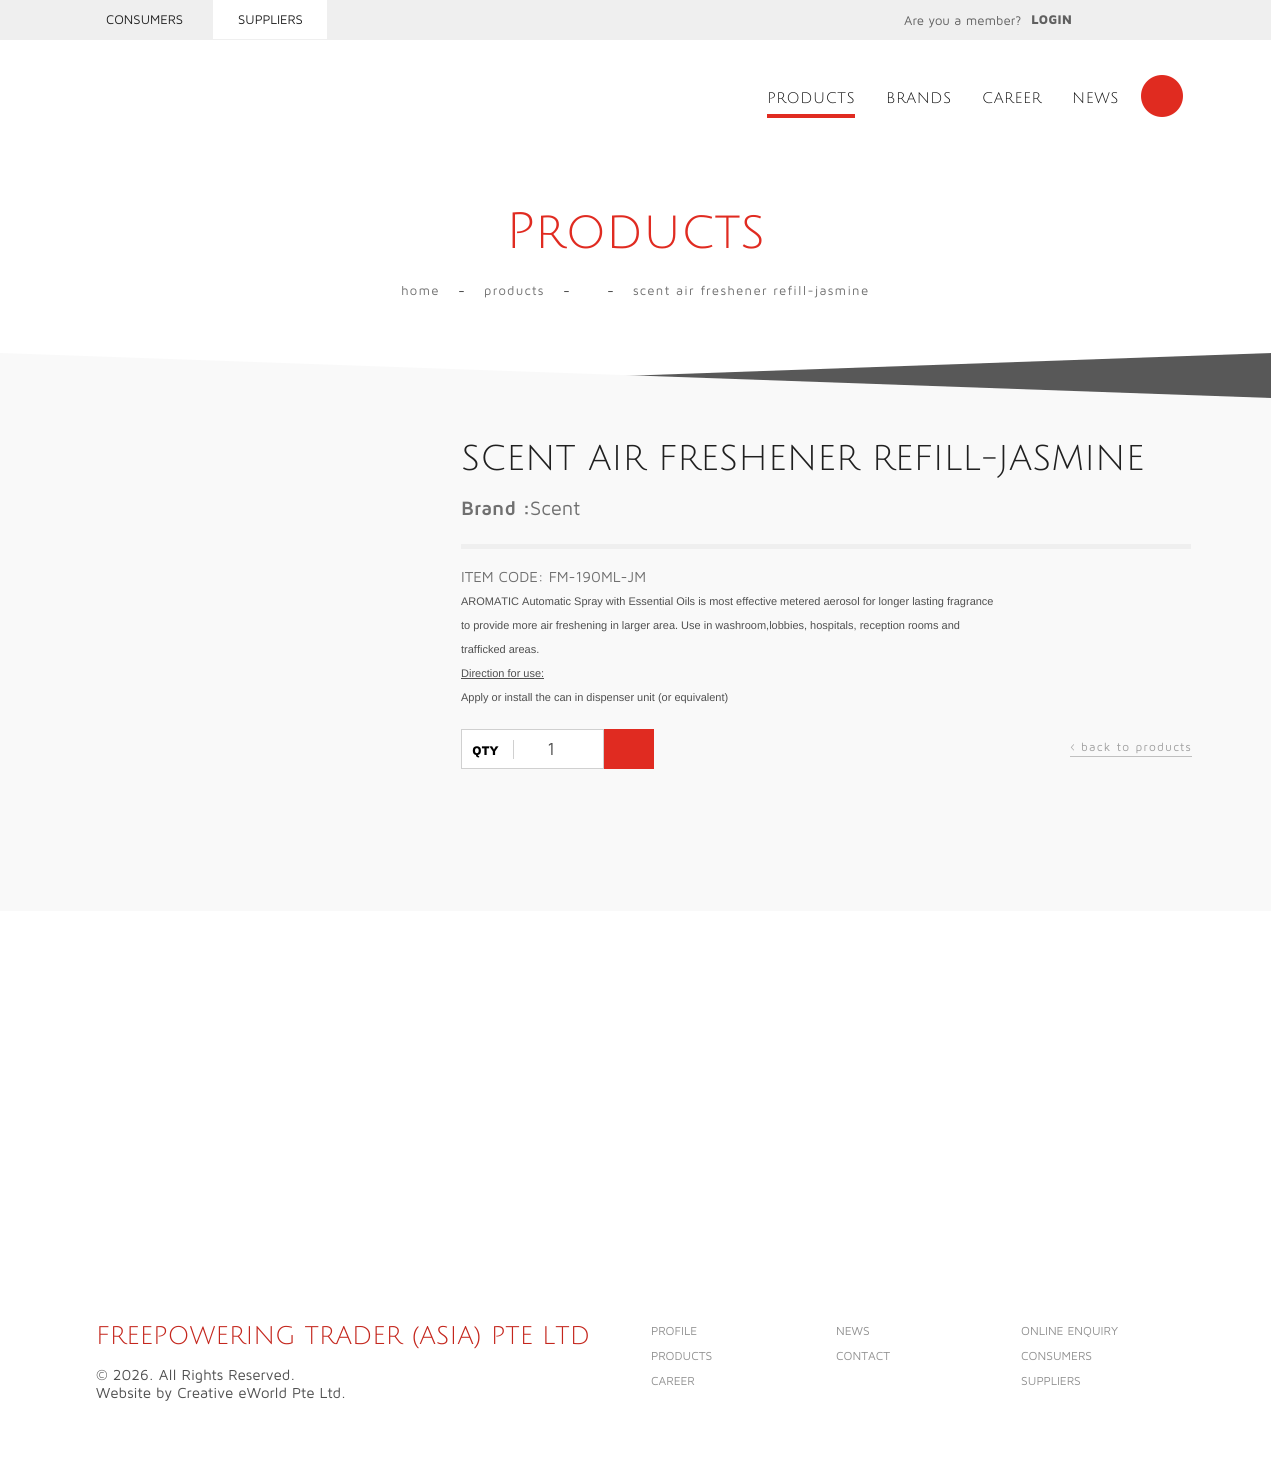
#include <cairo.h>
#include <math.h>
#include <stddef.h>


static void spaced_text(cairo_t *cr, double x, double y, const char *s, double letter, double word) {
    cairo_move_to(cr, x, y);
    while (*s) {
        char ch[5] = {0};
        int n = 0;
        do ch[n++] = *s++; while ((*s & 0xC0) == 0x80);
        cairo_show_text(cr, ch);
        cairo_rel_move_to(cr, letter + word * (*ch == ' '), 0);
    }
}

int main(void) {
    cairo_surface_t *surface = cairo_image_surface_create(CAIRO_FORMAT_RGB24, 1271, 1477);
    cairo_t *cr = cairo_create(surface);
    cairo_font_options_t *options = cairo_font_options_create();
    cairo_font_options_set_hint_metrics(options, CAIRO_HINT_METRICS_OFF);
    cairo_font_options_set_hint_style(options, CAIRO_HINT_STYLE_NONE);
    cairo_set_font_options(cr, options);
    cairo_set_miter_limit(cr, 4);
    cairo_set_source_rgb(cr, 1, 1, 1);
    cairo_paint(cr);
    cairo_set_source_rgb(cr, 0.937, 0.937, 0.937);
    cairo_rectangle(cr, 0, 0, 1271, 40);
    cairo_fill(cr);
    cairo_select_font_face(cr, "Maven Pro", CAIRO_FONT_SLANT_NORMAL, CAIRO_FONT_WEIGHT_NORMAL);
    cairo_set_font_size(cr, 13);
    cairo_set_source_rgb(cr, 0.125, 0.125, 0.125);
    cairo_move_to(cr, 106, 24);
    cairo_show_text(cr, "CONSUMERS");
    cairo_set_source_rgb(cr, 1, 1, 1);
    cairo_rectangle(cr, 213, 0, 114, 39);
    cairo_fill(cr);
    cairo_set_source_rgb(cr, 0.125, 0.125, 0.125);
    cairo_move_to(cr, 238, 24);
    cairo_show_text(cr, "SUPPLIERS");
    cairo_set_source_rgb(cr, 0.376, 0.376, 0.376);
    cairo_move_to(cr, 904, 25);
    cairo_show_text(cr, "Are you a member?");
    cairo_select_font_face(cr, "Maven Pro Black", CAIRO_FONT_SLANT_NORMAL, CAIRO_FONT_WEIGHT_NORMAL);
    cairo_move_to(cr, 1031, 24);
    cairo_show_text(cr, "LOGIN");
    cairo_set_source_rgb(cr, 0.878, 0.169, 0.129);
    cairo_rectangle(cr, 767, 114, 88, 4);
    cairo_fill(cr);
    cairo_select_font_face(cr, "Julius Sans One", CAIRO_FONT_SLANT_NORMAL, CAIRO_FONT_WEIGHT_NORMAL);
    cairo_set_font_size(cr, 15);
    cairo_set_source_rgb(cr, 0.063, 0.063, 0.063);
    spaced_text(cr, 767, 103, "PRODUCTS", 0.5, 0);
    spaced_text(cr, 886, 103, "BRANDS", 0.5, 0);
    spaced_text(cr, 982, 103, "CAREER", 0.5, 0);
    spaced_text(cr, 1072, 103, "NEWS", 0.5, 0);
    cairo_set_source_rgb(cr, 0.878, 0.169, 0.125);
    cairo_new_path(cr);
    cairo_arc(cr, 1162, 96, 21, 0, 2 * M_PI);
    cairo_fill(cr);
    cairo_set_font_size(cr, 50);
    cairo_set_source_rgb(cr, 0.878, 0.169, 0.129);
    cairo_move_to(cr, 506, 248);
    cairo_show_text(cr, "Products");
    cairo_select_font_face(cr, "Maven Pro", CAIRO_FONT_SLANT_NORMAL, CAIRO_FONT_WEIGHT_NORMAL);
    cairo_set_font_size(cr, 13);
    cairo_set_source_rgb(cr, 0.439, 0.439, 0.439);
    spaced_text(cr, 401, 295, "home", 1.3, 0);
    cairo_set_font_size(cr, 15);
    cairo_set_source_rgb(cr, 0.314, 0.314, 0.314);
    cairo_move_to(cr, 458, 296);
    cairo_show_text(cr, "-");
    cairo_set_font_size(cr, 13);
    cairo_set_source_rgb(cr, 0.439, 0.439, 0.439);
    spaced_text(cr, 484, 295, "products", 1.3, 0);
    cairo_set_font_size(cr, 15);
    cairo_set_source_rgb(cr, 0.314, 0.314, 0.314);
    cairo_move_to(cr, 563, 296);
    cairo_show_text(cr, "-");
    cairo_move_to(cr, 607, 296);
    cairo_show_text(cr, "-");
    cairo_set_font_size(cr, 13);
    cairo_set_source_rgb(cr, 0.439, 0.439, 0.439);
    spaced_text(cr, 633, 295, "scent air freshener refill-jasmine", 1.3, 0);
    cairo_set_source_rgb(cr, 0.345, 0.345, 0.345);
    cairo_new_path(cr);
    cairo_move_to(cr, 1271, 416);
    cairo_line_to(cr, -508, 416);
    cairo_line_to(cr, 1271, 353);
    cairo_close_path(cr);
    cairo_fill(cr);
    cairo_set_source_rgb(cr, 0.976, 0.976, 0.976);
    cairo_new_path(cr);
    cairo_move_to(cr, 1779, 416);
    cairo_line_to(cr, 0, 416);
    cairo_line_to(cr, 0, 353);
    cairo_close_path(cr);
    cairo_fill(cr);
    cairo_rectangle(cr, 0, 416, 1271, 495);
    cairo_fill(cr);
    cairo_select_font_face(cr, "Julius Sans One", CAIRO_FONT_SLANT_NORMAL, CAIRO_FONT_WEIGHT_NORMAL);
    cairo_set_font_size(cr, 35);
    cairo_set_source_rgb(cr, 0.125, 0.125, 0.125);
    cairo_move_to(cr, 461, 470);
    cairo_show_text(cr, "SCENT AIR FRESHENER REFILL-JASMINE");
    cairo_select_font_face(cr, "Maven Pro", CAIRO_FONT_SLANT_NORMAL, CAIRO_FONT_WEIGHT_BOLD);
    cairo_set_font_size(cr, 20);
    cairo_set_source_rgb(cr, 0.439, 0.439, 0.439);
    cairo_move_to(cr, 461, 515);
    cairo_show_text(cr, "Brand :");
    cairo_select_font_face(cr, "Maven Pro", CAIRO_FONT_SLANT_NORMAL, CAIRO_FONT_WEIGHT_NORMAL);
    cairo_move_to(cr, 530, 515);
    cairo_show_text(cr, "Scent");
    cairo_set_source_rgb(cr, 0.937, 0.937, 0.937);
    cairo_rectangle(cr, 461, 544, 730, 5);
    cairo_fill(cr);
    cairo_set_font_size(cr, 15);
    cairo_set_source_rgb(cr, 0.439, 0.439, 0.439);
    cairo_move_to(cr, 461, 582);
    cairo_show_text(cr, "ITEM CODE: FM-190ML-JM");
    cairo_select_font_face(cr, "Liberation Sans", CAIRO_FONT_SLANT_NORMAL, CAIRO_FONT_WEIGHT_NORMAL);
    cairo_set_font_size(cr, 11);
    cairo_set_source_rgb(cr, 0.314, 0.314, 0.314);
    cairo_move_to(cr, 461, 605);
    cairo_show_text(cr, "AROMATIC Automatic Spray with Essential Oils is most effective metered aerosol for longer lasting fragrance");
    cairo_move_to(cr, 461, 629);
    cairo_show_text(cr, "to provide more air freshening in larger area. Use in washroom,lobbies, hospitals, reception rooms and");
    cairo_move_to(cr, 461, 653);
    cairo_show_text(cr, "trafficked areas.");
    cairo_move_to(cr, 461, 677);
    cairo_show_text(cr, "Direction for use:");
    cairo_rectangle(cr, 461, 678, 83, 1);
    cairo_fill(cr);
    cairo_move_to(cr, 461, 701);
    cairo_show_text(cr, "Apply or install the can in dispenser unit (or equivalent)");
    cairo_set_source_rgb(cr, 1, 1, 1);
    cairo_rectangle(cr, 461.5, 729.5, 142, 39);
    cairo_fill_preserve(cr);
    cairo_set_source_rgb(cr, 0.816, 0.816, 0.816);
    cairo_set_line_width(cr, 1);
    cairo_stroke(cr);
    cairo_select_font_face(cr, "Maven Pro Black", CAIRO_FONT_SLANT_NORMAL, CAIRO_FONT_WEIGHT_NORMAL);
    cairo_set_font_size(cr, 13);
    cairo_set_source_rgb(cr, 0, 0, 0);
    cairo_move_to(cr, 472, 755);
    cairo_show_text(cr, "QTY");
    cairo_set_source_rgb(cr, 0.816, 0.816, 0.816);
    cairo_rectangle(cr, 513, 740, 1, 19);
    cairo_fill(cr);
    cairo_select_font_face(cr, "Maven Pro", CAIRO_FONT_SLANT_NORMAL, CAIRO_FONT_WEIGHT_NORMAL);
    cairo_set_font_size(cr, 18);
    cairo_set_source_rgb(cr, 0.314, 0.314, 0.314);
    cairo_move_to(cr, 547, 755);
    cairo_show_text(cr, "1");
    cairo_set_source_rgb(cr, 0.878, 0.169, 0.129);
    cairo_rectangle(cr, 604, 729, 50, 40);
    cairo_fill(cr);
    cairo_set_source_rgb(cr, 0.753, 0.753, 0.753);
    cairo_rectangle(cr, 1070, 756, 122, 1);
    cairo_fill(cr);
    cairo_select_font_face(cr, "Julius Sans One", CAIRO_FONT_SLANT_NORMAL, CAIRO_FONT_WEIGHT_NORMAL);
    cairo_set_font_size(cr, 17);
    cairo_set_source_rgb(cr, 0.627, 0.627, 0.627);
    spaced_text(cr, 1070, 753, "‹", 1.25, 0);
    cairo_select_font_face(cr, "Maven Pro", CAIRO_FONT_SLANT_NORMAL, CAIRO_FONT_WEIGHT_NORMAL);
    cairo_set_font_size(cr, 12);
    spaced_text(cr, 1081, 751, "back to products", 1.25, 0);
    cairo_select_font_face(cr, "Julius Sans One", CAIRO_FONT_SLANT_NORMAL, CAIRO_FONT_WEIGHT_NORMAL);
    cairo_set_font_size(cr, 25);
    cairo_set_source_rgb(cr, 0.769, 0.149, 0.114);
    cairo_move_to(cr, 96, 1344);
    cairo_show_text(cr, "FREEPOWERING TRADER (ASIA) PTE LTD");
    cairo_select_font_face(cr, "Maven Pro", CAIRO_FONT_SLANT_NORMAL, CAIRO_FONT_WEIGHT_NORMAL);
    cairo_set_font_size(cr, 15);
    cairo_set_source_rgb(cr, 0.314, 0.314, 0.314);
    cairo_move_to(cr, 96, 1380);
    cairo_show_text(cr, "© 2026. All Rights Reserved.");
    cairo_move_to(cr, 96, 1398);
    cairo_show_text(cr, "Website by Creative eWorld Pte Ltd.");
    cairo_set_font_size(cr, 12);
    cairo_set_source_rgb(cr, 0.565, 0.565, 0.565);
    cairo_move_to(cr, 651, 1335);
    cairo_show_text(cr, "PROFILE");
    cairo_move_to(cr, 651, 1360);
    cairo_show_text(cr, "PRODUCTS");
    cairo_move_to(cr, 651, 1385);
    cairo_show_text(cr, "CAREER");
    cairo_move_to(cr, 836, 1335);
    cairo_show_text(cr, "NEWS");
    cairo_move_to(cr, 836, 1360);
    cairo_show_text(cr, "CONTACT");
    cairo_move_to(cr, 1021, 1335);
    cairo_show_text(cr, "ONLINE ENQUIRY");
    cairo_move_to(cr, 1021, 1360);
    cairo_show_text(cr, "CONSUMERS");
    cairo_move_to(cr, 1021, 1385);
    cairo_show_text(cr, "SUPPLIERS");
    cairo_surface_write_to_png(surface, "page.png");
    cairo_font_options_destroy(options);
    cairo_destroy(cr);
    cairo_surface_destroy(surface);
    return 0;
}
